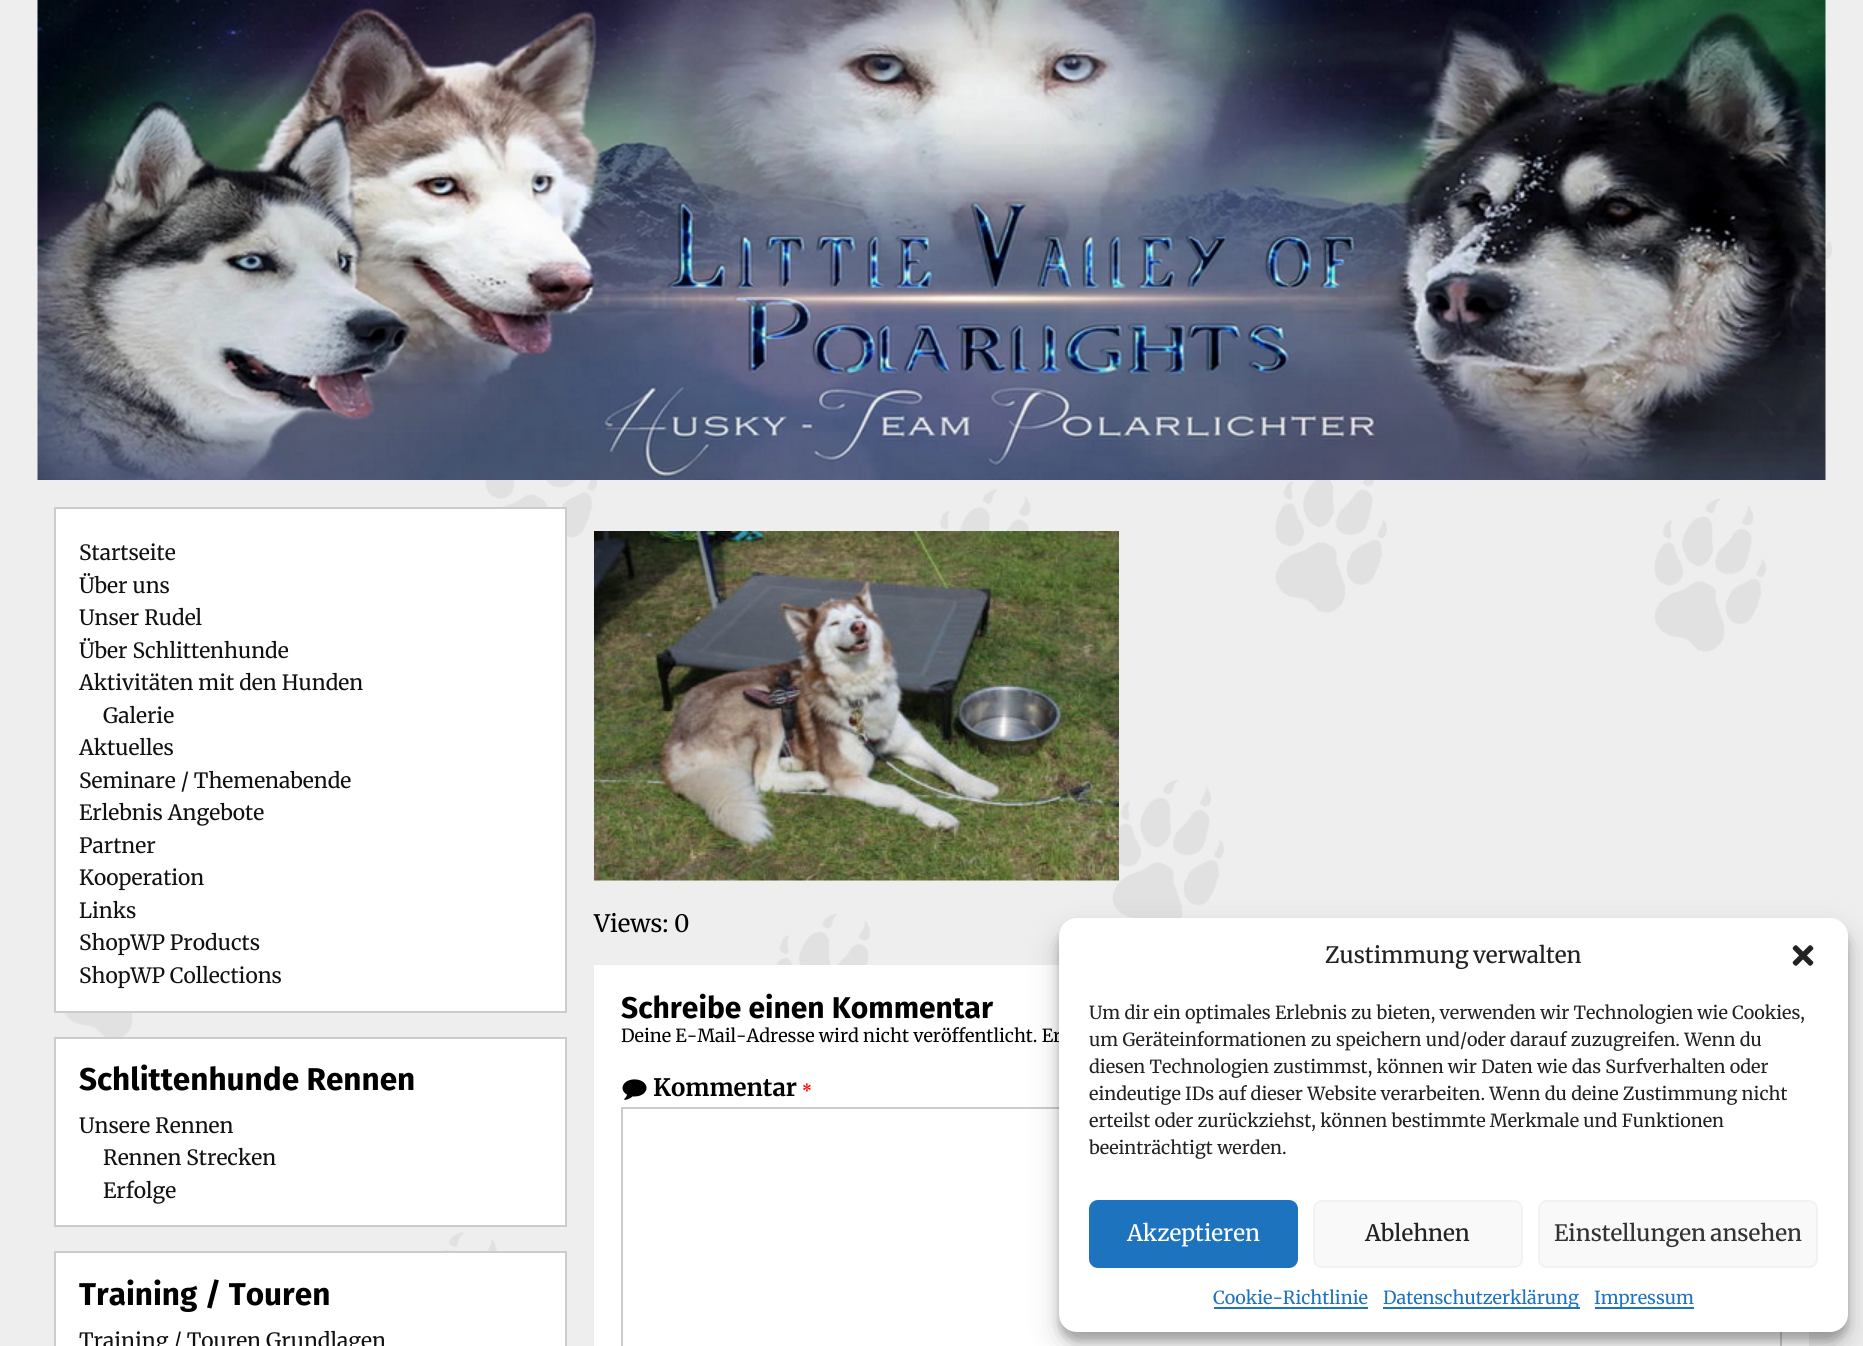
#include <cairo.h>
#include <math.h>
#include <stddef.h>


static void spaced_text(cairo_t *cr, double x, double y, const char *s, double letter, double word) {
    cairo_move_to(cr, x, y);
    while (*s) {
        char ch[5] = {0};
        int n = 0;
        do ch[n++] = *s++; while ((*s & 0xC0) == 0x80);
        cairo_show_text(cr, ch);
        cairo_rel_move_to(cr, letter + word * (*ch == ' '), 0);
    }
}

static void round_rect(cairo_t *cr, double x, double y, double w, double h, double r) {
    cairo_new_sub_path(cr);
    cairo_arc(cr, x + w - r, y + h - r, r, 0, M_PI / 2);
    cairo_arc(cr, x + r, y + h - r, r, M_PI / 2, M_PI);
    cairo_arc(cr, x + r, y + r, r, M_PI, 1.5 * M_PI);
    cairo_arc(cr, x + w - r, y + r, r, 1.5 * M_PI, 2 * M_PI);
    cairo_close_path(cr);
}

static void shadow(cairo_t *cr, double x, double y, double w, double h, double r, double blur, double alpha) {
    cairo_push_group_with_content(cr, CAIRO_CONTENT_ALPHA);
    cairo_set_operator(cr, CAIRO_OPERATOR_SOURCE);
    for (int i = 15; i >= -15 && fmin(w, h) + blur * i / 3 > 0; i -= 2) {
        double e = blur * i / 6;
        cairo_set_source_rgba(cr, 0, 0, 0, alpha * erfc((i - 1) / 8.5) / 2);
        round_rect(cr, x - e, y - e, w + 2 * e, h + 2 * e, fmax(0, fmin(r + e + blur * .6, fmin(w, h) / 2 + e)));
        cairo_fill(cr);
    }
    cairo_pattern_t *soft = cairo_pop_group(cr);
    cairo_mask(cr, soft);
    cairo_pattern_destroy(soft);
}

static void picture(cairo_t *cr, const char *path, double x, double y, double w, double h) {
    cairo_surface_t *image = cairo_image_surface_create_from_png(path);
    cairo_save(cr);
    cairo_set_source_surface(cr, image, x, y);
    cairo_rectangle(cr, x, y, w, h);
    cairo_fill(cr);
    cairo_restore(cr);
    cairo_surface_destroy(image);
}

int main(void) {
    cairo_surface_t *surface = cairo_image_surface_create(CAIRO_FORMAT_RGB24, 1863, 1346);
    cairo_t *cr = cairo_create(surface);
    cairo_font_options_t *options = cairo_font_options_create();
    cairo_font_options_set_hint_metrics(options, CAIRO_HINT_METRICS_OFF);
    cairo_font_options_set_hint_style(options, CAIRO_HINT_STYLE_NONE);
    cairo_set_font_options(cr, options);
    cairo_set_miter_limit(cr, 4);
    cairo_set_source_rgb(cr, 0.933, 0.933, 0.933);
    cairo_paint(cr);
    picture(cr, "img1.png", 64, 239, 1768, 1012);
    picture(cr, "img2.png", 37, 0, 1789, 480);
    cairo_set_source_rgb(cr, 1, 1, 1);
    cairo_rectangle(cr, 55, 508, 511, 504);
    cairo_fill_preserve(cr);
    cairo_set_source_rgb(cr, 0.8, 0.8, 0.8);
    cairo_stroke(cr);
    cairo_select_font_face(cr, "Merriweather", CAIRO_FONT_SLANT_NORMAL, CAIRO_FONT_WEIGHT_NORMAL);
    cairo_set_font_size(cr, 21);
    cairo_set_source_rgb(cr, 0.067, 0.067, 0.067);
    cairo_move_to(cr, 79, 560);
    cairo_show_text(cr, "Startseite");
    cairo_move_to(cr, 79, 593);
    cairo_show_text(cr, "Über uns");
    cairo_move_to(cr, 79, 625);
    cairo_show_text(cr, "Unser Rudel");
    cairo_move_to(cr, 79, 658);
    cairo_show_text(cr, "Über Schlittenhunde");
    cairo_move_to(cr, 79, 690);
    cairo_show_text(cr, "Aktivitäten mit den Hunden");
    cairo_move_to(cr, 103, 723);
    cairo_show_text(cr, "Galerie");
    cairo_move_to(cr, 79, 755);
    cairo_show_text(cr, "Aktuelles");
    cairo_move_to(cr, 79, 788);
    cairo_show_text(cr, "Seminare / Themenabende");
    cairo_move_to(cr, 79, 820);
    cairo_show_text(cr, "Erlebnis Angebote");
    cairo_move_to(cr, 79, 853);
    cairo_show_text(cr, "Partner");
    cairo_move_to(cr, 79, 885);
    cairo_show_text(cr, "Kooperation");
    cairo_move_to(cr, 79, 918);
    cairo_show_text(cr, "Links");
    cairo_move_to(cr, 79, 950);
    cairo_show_text(cr, "ShopWP Products");
    cairo_move_to(cr, 79, 983);
    cairo_show_text(cr, "ShopWP Collections");
    cairo_set_source_rgb(cr, 1, 1, 1);
    cairo_rectangle(cr, 55, 1038, 511, 188);
    cairo_fill_preserve(cr);
    cairo_set_source_rgb(cr, 0.8, 0.8, 0.8);
    cairo_stroke(cr);
    cairo_select_font_face(cr, "Fira Sans", CAIRO_FONT_SLANT_NORMAL, CAIRO_FONT_WEIGHT_BOLD);
    cairo_set_font_size(cr, 31.5);
    cairo_set_source_rgb(cr, 0, 0, 0);
    cairo_move_to(cr, 79, 1090);
    cairo_show_text(cr, "Schlittenhunde Rennen");
    cairo_select_font_face(cr, "Merriweather", CAIRO_FONT_SLANT_NORMAL, CAIRO_FONT_WEIGHT_NORMAL);
    cairo_set_font_size(cr, 21);
    cairo_set_source_rgb(cr, 0.067, 0.067, 0.067);
    cairo_move_to(cr, 79, 1133);
    cairo_show_text(cr, "Unsere Rennen");
    cairo_move_to(cr, 103, 1165);
    cairo_show_text(cr, "Rennen Strecken");
    cairo_move_to(cr, 103, 1198);
    cairo_show_text(cr, "Erfolge");
    cairo_set_source_rgb(cr, 1, 1, 1);
    cairo_rectangle(cr, 55, 1252, 511, 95);
    cairo_fill_preserve(cr);
    cairo_set_source_rgb(cr, 0.8, 0.8, 0.8);
    cairo_stroke(cr);
    cairo_select_font_face(cr, "Fira Sans", CAIRO_FONT_SLANT_NORMAL, CAIRO_FONT_WEIGHT_BOLD);
    cairo_set_font_size(cr, 31.5);
    cairo_set_source_rgb(cr, 0, 0, 0);
    cairo_move_to(cr, 79, 1305);
    cairo_show_text(cr, "Training / Touren");
    cairo_select_font_face(cr, "Merriweather", CAIRO_FONT_SLANT_NORMAL, CAIRO_FONT_WEIGHT_NORMAL);
    cairo_set_font_size(cr, 21);
    cairo_set_source_rgb(cr, 0.067, 0.067, 0.067);
    cairo_move_to(cr, 79, 1348);
    cairo_show_text(cr, "Training / Touren Grundlagen");
    picture(cr, "img3.png", 594, 531, 525, 350);
    cairo_set_font_size(cr, 24);
    cairo_set_source_rgb(cr, 0, 0, 0);
    cairo_move_to(cr, 594, 932);
    cairo_show_text(cr, "Views: 0");
    cairo_set_source_rgb(cr, 1, 1, 1);
    cairo_rectangle(cr, 594, 965, 1215, 381);
    cairo_fill(cr);
    cairo_select_font_face(cr, "Fira Sans", CAIRO_FONT_SLANT_NORMAL, CAIRO_FONT_WEIGHT_BOLD);
    cairo_set_font_size(cr, 30);
    cairo_set_source_rgb(cr, 0, 0, 0);
    cairo_move_to(cr, 621, 1018);
    cairo_show_text(cr, "Schreibe einen Kommentar");
    cairo_select_font_face(cr, "Merriweather", CAIRO_FONT_SLANT_NORMAL, CAIRO_FONT_WEIGHT_NORMAL);
    cairo_set_font_size(cr, 18);
    cairo_move_to(cr, 621, 1042);
    cairo_show_text(cr, "Deine E-Mail-Adresse wird nicht veröffentlicht. Er");
    picture(cr, "img4.png", 622, 1079, 25, 21);
    cairo_select_font_face(cr, "Merriweather", CAIRO_FONT_SLANT_NORMAL, CAIRO_FONT_WEIGHT_BOLD);
    cairo_set_font_size(cr, 24);
    cairo_move_to(cr, 653, 1096);
    cairo_show_text(cr, "Kommentar");
    cairo_set_font_size(cr, 15);
    cairo_set_source_rgb(cr, 1, 0, 0);
    cairo_move_to(cr, 802, 1096);
    cairo_show_text(cr, "*");
    cairo_rectangle(cr, 622, 1108, 1159, 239);
    cairo_set_source_rgb(cr, 0.8, 0.8, 0.8);
    cairo_stroke(cr);
    cairo_set_source_rgb(cr, 0, 0, 0);
    shadow(cr, 1059, 927, 789, 414, 18, 4.5, 0.23);
    shadow(cr, 1059, 933, 789, 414, 18, 15, 0.19);
    cairo_set_source_rgb(cr, 1, 1, 1);
    round_rect(cr, 1059, 918, 789, 414, 18);
    cairo_fill(cr);
    cairo_select_font_face(cr, "Merriweather Medium", CAIRO_FONT_SLANT_NORMAL, CAIRO_FONT_WEIGHT_NORMAL);
    cairo_set_font_size(cr, 22.5);
    cairo_set_source_rgb(cr, 0.133, 0.133, 0.133);
    spaced_text(cr, 1325, 963, "Zustimmung verwalten", 0, -1);
    picture(cr, "img5.png", 1792, 945, 22, 21);
    cairo_select_font_face(cr, "Merriweather", CAIRO_FONT_SLANT_NORMAL, CAIRO_FONT_WEIGHT_NORMAL);
    cairo_set_font_size(cr, 18);
    cairo_move_to(cr, 1089, 1019);
    cairo_show_text(cr, "Um dir ein optimales Erlebnis zu bieten, verwenden wir Technologien wie Cookies,");
    cairo_move_to(cr, 1089, 1046);
    cairo_show_text(cr, "um Geräteinformationen zu speichern und/oder darauf zuzugreifen. Wenn du");
    cairo_move_to(cr, 1089, 1073);
    cairo_show_text(cr, "diesen Technologien zustimmst, können wir Daten wie das Surfverhalten oder");
    cairo_move_to(cr, 1089, 1100);
    cairo_show_text(cr, "eindeutige IDs auf dieser Website verarbeiten. Wenn du deine Zustimmung nicht");
    cairo_move_to(cr, 1089, 1127);
    cairo_show_text(cr, "erteilst oder zurückziehst, können bestimmte Merkmale und Funktionen");
    cairo_move_to(cr, 1089, 1154);
    cairo_show_text(cr, "beeinträchtigt werden.");
    cairo_set_source_rgb(cr, 0.118, 0.451, 0.745);
    round_rect(cr, 1090, 1201, 207, 66, 8);
    cairo_fill_preserve(cr);
    cairo_stroke(cr);
    cairo_select_font_face(cr, "Merriweather Medium", CAIRO_FONT_SLANT_NORMAL, CAIRO_FONT_WEIGHT_NORMAL);
    cairo_set_font_size(cr, 22.5);
    cairo_set_source_rgb(cr, 1, 1, 1);
    cairo_move_to(cr, 1127, 1241);
    cairo_show_text(cr, "Akzeptieren");
    cairo_set_source_rgb(cr, 0.976, 0.976, 0.976);
    round_rect(cr, 1314, 1201, 208, 66, 8);
    cairo_fill_preserve(cr);
    cairo_set_source_rgb(cr, 0.949, 0.949, 0.949);
    cairo_stroke(cr);
    cairo_set_source_rgb(cr, 0.133, 0.133, 0.133);
    cairo_move_to(cr, 1365, 1241);
    cairo_show_text(cr, "Ablehnen");
    cairo_set_source_rgb(cr, 0.976, 0.976, 0.976);
    round_rect(cr, 1539, 1201, 278, 66, 8);
    cairo_fill_preserve(cr);
    cairo_set_source_rgb(cr, 0.949, 0.949, 0.949);
    cairo_stroke(cr);
    cairo_set_source_rgb(cr, 0.2, 0.2, 0.2);
    spaced_text(cr, 1554, 1241, "Einstellungen ansehen", 0, -1);
    cairo_select_font_face(cr, "Merriweather", CAIRO_FONT_SLANT_NORMAL, CAIRO_FONT_WEIGHT_NORMAL);
    cairo_set_font_size(cr, 18);
    cairo_set_source_rgb(cr, 0.118, 0.451, 0.745);
    cairo_move_to(cr, 1213, 1304);
    cairo_show_text(cr, "Cookie-Richtlinie");
    cairo_rectangle(cr, 1214, 1307, 154, 2);
    cairo_fill(cr);
    cairo_rectangle(cr, 1383, 1307, 197, 2);
    cairo_fill(cr);
    cairo_move_to(cr, 1383, 1304);
    cairo_show_text(cr, "Datenschutzerklärung");
    cairo_rectangle(cr, 1595, 1307, 99, 2);
    cairo_fill(cr);
    cairo_move_to(cr, 1594, 1304);
    cairo_show_text(cr, "Impressum");
    cairo_surface_write_to_png(surface, "page.png");
    cairo_font_options_destroy(options);
    cairo_destroy(cr);
    cairo_surface_destroy(surface);
    return 0;
}
